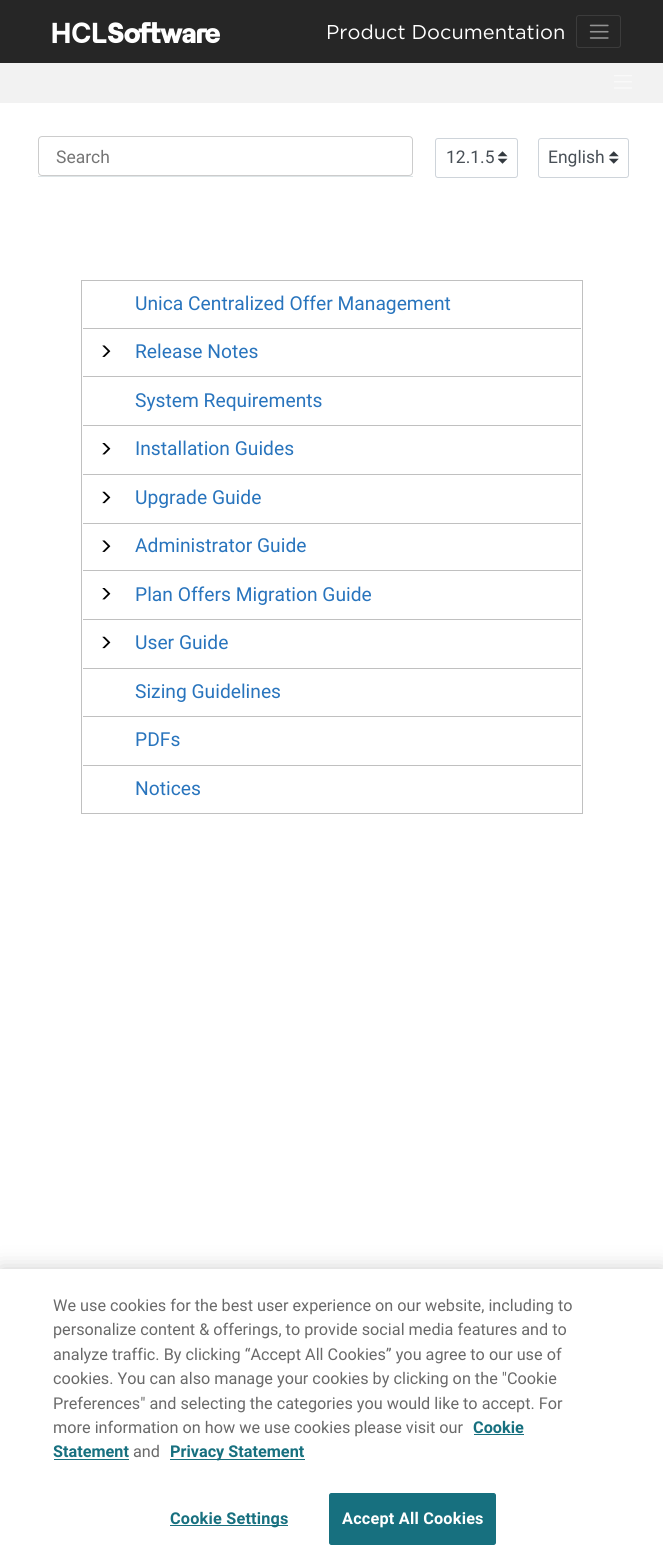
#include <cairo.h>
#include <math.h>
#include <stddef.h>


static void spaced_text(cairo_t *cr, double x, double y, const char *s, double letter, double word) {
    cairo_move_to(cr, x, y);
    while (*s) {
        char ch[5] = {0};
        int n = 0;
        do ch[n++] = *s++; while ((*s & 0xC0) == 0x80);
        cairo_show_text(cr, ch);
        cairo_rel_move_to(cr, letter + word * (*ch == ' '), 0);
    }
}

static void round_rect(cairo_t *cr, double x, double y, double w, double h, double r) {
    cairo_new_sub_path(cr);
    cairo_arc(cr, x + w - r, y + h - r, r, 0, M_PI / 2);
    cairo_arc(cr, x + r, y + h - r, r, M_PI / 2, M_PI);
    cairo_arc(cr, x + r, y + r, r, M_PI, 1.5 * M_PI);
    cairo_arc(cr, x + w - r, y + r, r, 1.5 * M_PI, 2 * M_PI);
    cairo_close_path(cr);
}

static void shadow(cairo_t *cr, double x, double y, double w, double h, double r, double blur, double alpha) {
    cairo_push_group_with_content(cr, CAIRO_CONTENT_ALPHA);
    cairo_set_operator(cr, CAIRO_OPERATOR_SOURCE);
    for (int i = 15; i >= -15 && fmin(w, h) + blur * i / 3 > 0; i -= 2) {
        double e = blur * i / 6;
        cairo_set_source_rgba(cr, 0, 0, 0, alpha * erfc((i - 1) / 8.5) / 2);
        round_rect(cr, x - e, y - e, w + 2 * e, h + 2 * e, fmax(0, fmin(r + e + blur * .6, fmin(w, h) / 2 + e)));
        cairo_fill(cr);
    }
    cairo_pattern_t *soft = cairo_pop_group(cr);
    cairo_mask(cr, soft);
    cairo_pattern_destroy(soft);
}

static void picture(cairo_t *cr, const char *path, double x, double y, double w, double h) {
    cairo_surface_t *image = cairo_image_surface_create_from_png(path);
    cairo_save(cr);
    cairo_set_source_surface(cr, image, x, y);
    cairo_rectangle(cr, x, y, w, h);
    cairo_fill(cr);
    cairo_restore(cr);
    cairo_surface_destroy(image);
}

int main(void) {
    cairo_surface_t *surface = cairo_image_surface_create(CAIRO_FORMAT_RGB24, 663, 1557);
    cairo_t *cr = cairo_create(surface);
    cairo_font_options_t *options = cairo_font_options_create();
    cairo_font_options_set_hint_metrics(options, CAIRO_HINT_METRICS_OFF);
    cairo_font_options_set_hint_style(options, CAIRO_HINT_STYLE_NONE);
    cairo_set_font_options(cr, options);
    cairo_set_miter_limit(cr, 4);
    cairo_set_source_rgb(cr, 1, 1, 1);
    cairo_paint(cr);
    cairo_set_source_rgb(cr, 0.149, 0.149, 0.149);
    cairo_rectangle(cr, 0, 0, 663, 63);
    cairo_fill(cr);
    picture(cr, "img1.png", 52, 22, 168, 22);
    cairo_select_font_face(cr, "Gotham", CAIRO_FONT_SLANT_NORMAL, CAIRO_FONT_WEIGHT_NORMAL);
    cairo_set_font_size(cr, 20);
    cairo_set_source_rgb(cr, 1, 1, 1);
    cairo_move_to(cr, 326, 39);
    cairo_show_text(cr, "Product Documentation");
    round_rect(cr, 576.5, 15.5, 44, 32, 2.5);
    cairo_set_source_rgb(cr, 0.235, 0.235, 0.235);
    cairo_set_line_width(cr, 1);
    cairo_stroke(cr);
    picture(cr, "img2.png", 589, 24, 20, 15);
    cairo_set_source_rgb(cr, 0.949, 0.949, 0.949);
    cairo_rectangle(cr, 0, 63, 663, 40);
    cairo_fill(cr);
    picture(cr, "img3.png", 614, 75, 18, 14);
    cairo_set_source_rgb(cr, 0.871, 0.898, 0.906);
    cairo_rectangle(cr, 38, 176, 375, 1);
    cairo_fill(cr);
    round_rect(cr, 38.5, 136.5, 374, 39, 3.5);
    cairo_set_source_rgb(cr, 0.8, 0.8, 0.8);
    cairo_stroke(cr);
    cairo_select_font_face(cr, "Roboto", CAIRO_FONT_SLANT_NORMAL, CAIRO_FONT_WEIGHT_NORMAL);
    cairo_set_font_size(cr, 17.5);
    cairo_set_source_rgb(cr, 0.459, 0.459, 0.459);
    cairo_move_to(cr, 56, 163);
    cairo_show_text(cr, "Search");
    picture(cr, "img4.png", 498, 151, 10, 13);
    round_rect(cr, 435.5, 138.5, 82, 39, 2.5);
    cairo_set_source_rgb(cr, 0.808, 0.831, 0.855);
    cairo_stroke(cr);
    cairo_set_source_rgb(cr, 0.286, 0.314, 0.341);
    cairo_move_to(cr, 446, 163);
    cairo_show_text(cr, "12.1.5");
    picture(cr, "img5.png", 609, 151, 10, 13);
    round_rect(cr, 538.5, 138.5, 90, 39, 2.5);
    cairo_set_source_rgb(cr, 0.808, 0.831, 0.855);
    cairo_stroke(cr);
    cairo_set_source_rgb(cr, 0.286, 0.314, 0.341);
    cairo_move_to(cr, 548, 163);
    cairo_show_text(cr, "English");
    cairo_rectangle(cr, 81.5, 280.5, 501, 533);
    cairo_set_source_rgb(cr, 0.753, 0.753, 0.753);
    cairo_stroke(cr);
    cairo_rectangle(cr, 83, 328, 498, 1);
    cairo_fill(cr);
    cairo_set_font_size(cr, 19.25);
    cairo_set_source_rgb(cr, 0.157, 0.455, 0.741);
    cairo_move_to(cr, 135, 310);
    cairo_show_text(cr, "Unica Centralized Offer Management");
    cairo_set_source_rgb(cr, 0.753, 0.753, 0.753);
    cairo_rectangle(cr, 83, 376, 498, 1);
    cairo_fill(cr);
    picture(cr, "img6.png", 102, 345, 9, 12);
    cairo_set_source_rgb(cr, 0.157, 0.455, 0.741);
    cairo_move_to(cr, 135, 358);
    cairo_show_text(cr, "Release Notes");
    cairo_set_source_rgb(cr, 0.753, 0.753, 0.753);
    cairo_rectangle(cr, 83, 425, 498, 1);
    cairo_fill(cr);
    cairo_set_source_rgb(cr, 0.157, 0.455, 0.741);
    cairo_move_to(cr, 135, 407);
    cairo_show_text(cr, "System Requirements");
    cairo_set_source_rgb(cr, 0.753, 0.753, 0.753);
    cairo_rectangle(cr, 83, 474, 498, 1);
    cairo_fill(cr);
    picture(cr, "img7.png", 102, 443, 9, 12);
    cairo_set_source_rgb(cr, 0.157, 0.455, 0.741);
    cairo_move_to(cr, 135, 455);
    cairo_show_text(cr, "Installation Guides");
    cairo_set_source_rgb(cr, 0.753, 0.753, 0.753);
    cairo_rectangle(cr, 83, 523, 498, 1);
    cairo_fill(cr);
    picture(cr, "img8.png", 102, 491, 9, 13);
    cairo_set_source_rgb(cr, 0.157, 0.455, 0.741);
    cairo_move_to(cr, 135, 504);
    cairo_show_text(cr, "Upgrade Guide");
    cairo_set_source_rgb(cr, 0.753, 0.753, 0.753);
    cairo_rectangle(cr, 83, 570, 498, 1);
    cairo_fill(cr);
    picture(cr, "img6.png", 102, 540, 9, 12);
    cairo_set_source_rgb(cr, 0.157, 0.455, 0.741);
    cairo_move_to(cr, 135, 552);
    cairo_show_text(cr, "Administrator Guide");
    cairo_set_source_rgb(cr, 0.753, 0.753, 0.753);
    cairo_rectangle(cr, 83, 619, 498, 1);
    cairo_fill(cr);
    picture(cr, "img7.png", 102, 588, 9, 12);
    cairo_set_source_rgb(cr, 0.157, 0.455, 0.741);
    cairo_move_to(cr, 135, 601);
    cairo_show_text(cr, "Plan Offers Migration Guide");
    cairo_set_source_rgb(cr, 0.753, 0.753, 0.753);
    cairo_rectangle(cr, 83, 668, 498, 1);
    cairo_fill(cr);
    picture(cr, "img8.png", 102, 636, 9, 13);
    cairo_set_source_rgb(cr, 0.157, 0.455, 0.741);
    cairo_move_to(cr, 135, 649);
    cairo_show_text(cr, "User Guide");
    cairo_set_source_rgb(cr, 0.753, 0.753, 0.753);
    cairo_rectangle(cr, 83, 716, 498, 1);
    cairo_fill(cr);
    cairo_set_source_rgb(cr, 0.157, 0.455, 0.741);
    cairo_move_to(cr, 135, 698);
    cairo_show_text(cr, "Sizing Guidelines");
    cairo_set_source_rgb(cr, 0.753, 0.753, 0.753);
    cairo_rectangle(cr, 83, 765, 498, 1);
    cairo_fill(cr);
    cairo_set_source_rgb(cr, 0.157, 0.455, 0.741);
    cairo_move_to(cr, 135, 746);
    cairo_show_text(cr, "PDFs");
    cairo_move_to(cr, 135, 795);
    cairo_show_text(cr, "Notices");
    cairo_set_source_rgb(cr, 0, 0, 0);
    shadow(cr, 0, 1269, 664, 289, 0, 11, 0.2);
    cairo_set_source_rgb(cr, 1, 1, 1);
    cairo_rectangle(cr, 0, 1269, 663, 288);
    cairo_fill(cr);
    cairo_set_font_size(cr, 16.25);
    cairo_set_source_rgb(cr, 0.412, 0.412, 0.412);
    cairo_move_to(cr, 53, 1311);
    cairo_show_text(cr, "We use cookies for the best user experience on our website, including to");
    cairo_move_to(cr, 53, 1335);
    cairo_show_text(cr, "personalize content & offerings, to provide social media features and to");
    cairo_move_to(cr, 53, 1360);
    cairo_show_text(cr, "analyze traffic. By clicking “Accept All Cookies” you agree to our use of");
    cairo_move_to(cr, 53, 1384);
    cairo_show_text(cr, "cookies. You can also manage your cookies by clicking on the \"Cookie");
    cairo_move_to(cr, 53, 1409);
    cairo_show_text(cr, "Preferences\" and selecting the categories you would like to accept. For");
    cairo_move_to(cr, 53, 1433);
    cairo_show_text(cr, "more information on how we use cookies please visit our");
    cairo_select_font_face(cr, "Roboto", CAIRO_FONT_SLANT_NORMAL, CAIRO_FONT_WEIGHT_BOLD);
    cairo_set_source_rgb(cr, 0.09, 0.439, 0.498);
    cairo_move_to(cr, 473, 1433);
    cairo_show_text(cr, "Cookie");
    cairo_rectangle(cr, 474, 1434, 50, 1);
    cairo_fill(cr);
    cairo_move_to(cr, 53, 1457);
    cairo_show_text(cr, "Statement");
    cairo_rectangle(cr, 54, 1459, 75, 1);
    cairo_fill(cr);
    cairo_select_font_face(cr, "Roboto", CAIRO_FONT_SLANT_NORMAL, CAIRO_FONT_WEIGHT_NORMAL);
    cairo_set_source_rgb(cr, 0.412, 0.412, 0.412);
    cairo_move_to(cr, 133, 1457);
    cairo_show_text(cr, "and");
    cairo_set_source_rgb(cr, 0.09, 0.439, 0.498);
    cairo_rectangle(cr, 170, 1459, 135, 1);
    cairo_fill(cr);
    cairo_select_font_face(cr, "Roboto", CAIRO_FONT_SLANT_NORMAL, CAIRO_FONT_WEIGHT_BOLD);
    cairo_move_to(cr, 170, 1457);
    cairo_show_text(cr, "Privacy Statement");
    cairo_rectangle(cr, 170, 1525, 118, 1);
    cairo_fill(cr);
    spaced_text(cr, 170, 1524, "Cookie Settings", 0.2, 0);
    round_rect(cr, 329.5, 1493.5, 166, 51, 2);
    cairo_fill_preserve(cr);
    cairo_stroke(cr);
    cairo_set_source_rgb(cr, 1, 1, 1);
    spaced_text(cr, 342, 1524, "Accept All Cookies", 0.2, 0);
    cairo_surface_write_to_png(surface, "page.png");
    cairo_font_options_destroy(options);
    cairo_destroy(cr);
    cairo_surface_destroy(surface);
    return 0;
}
